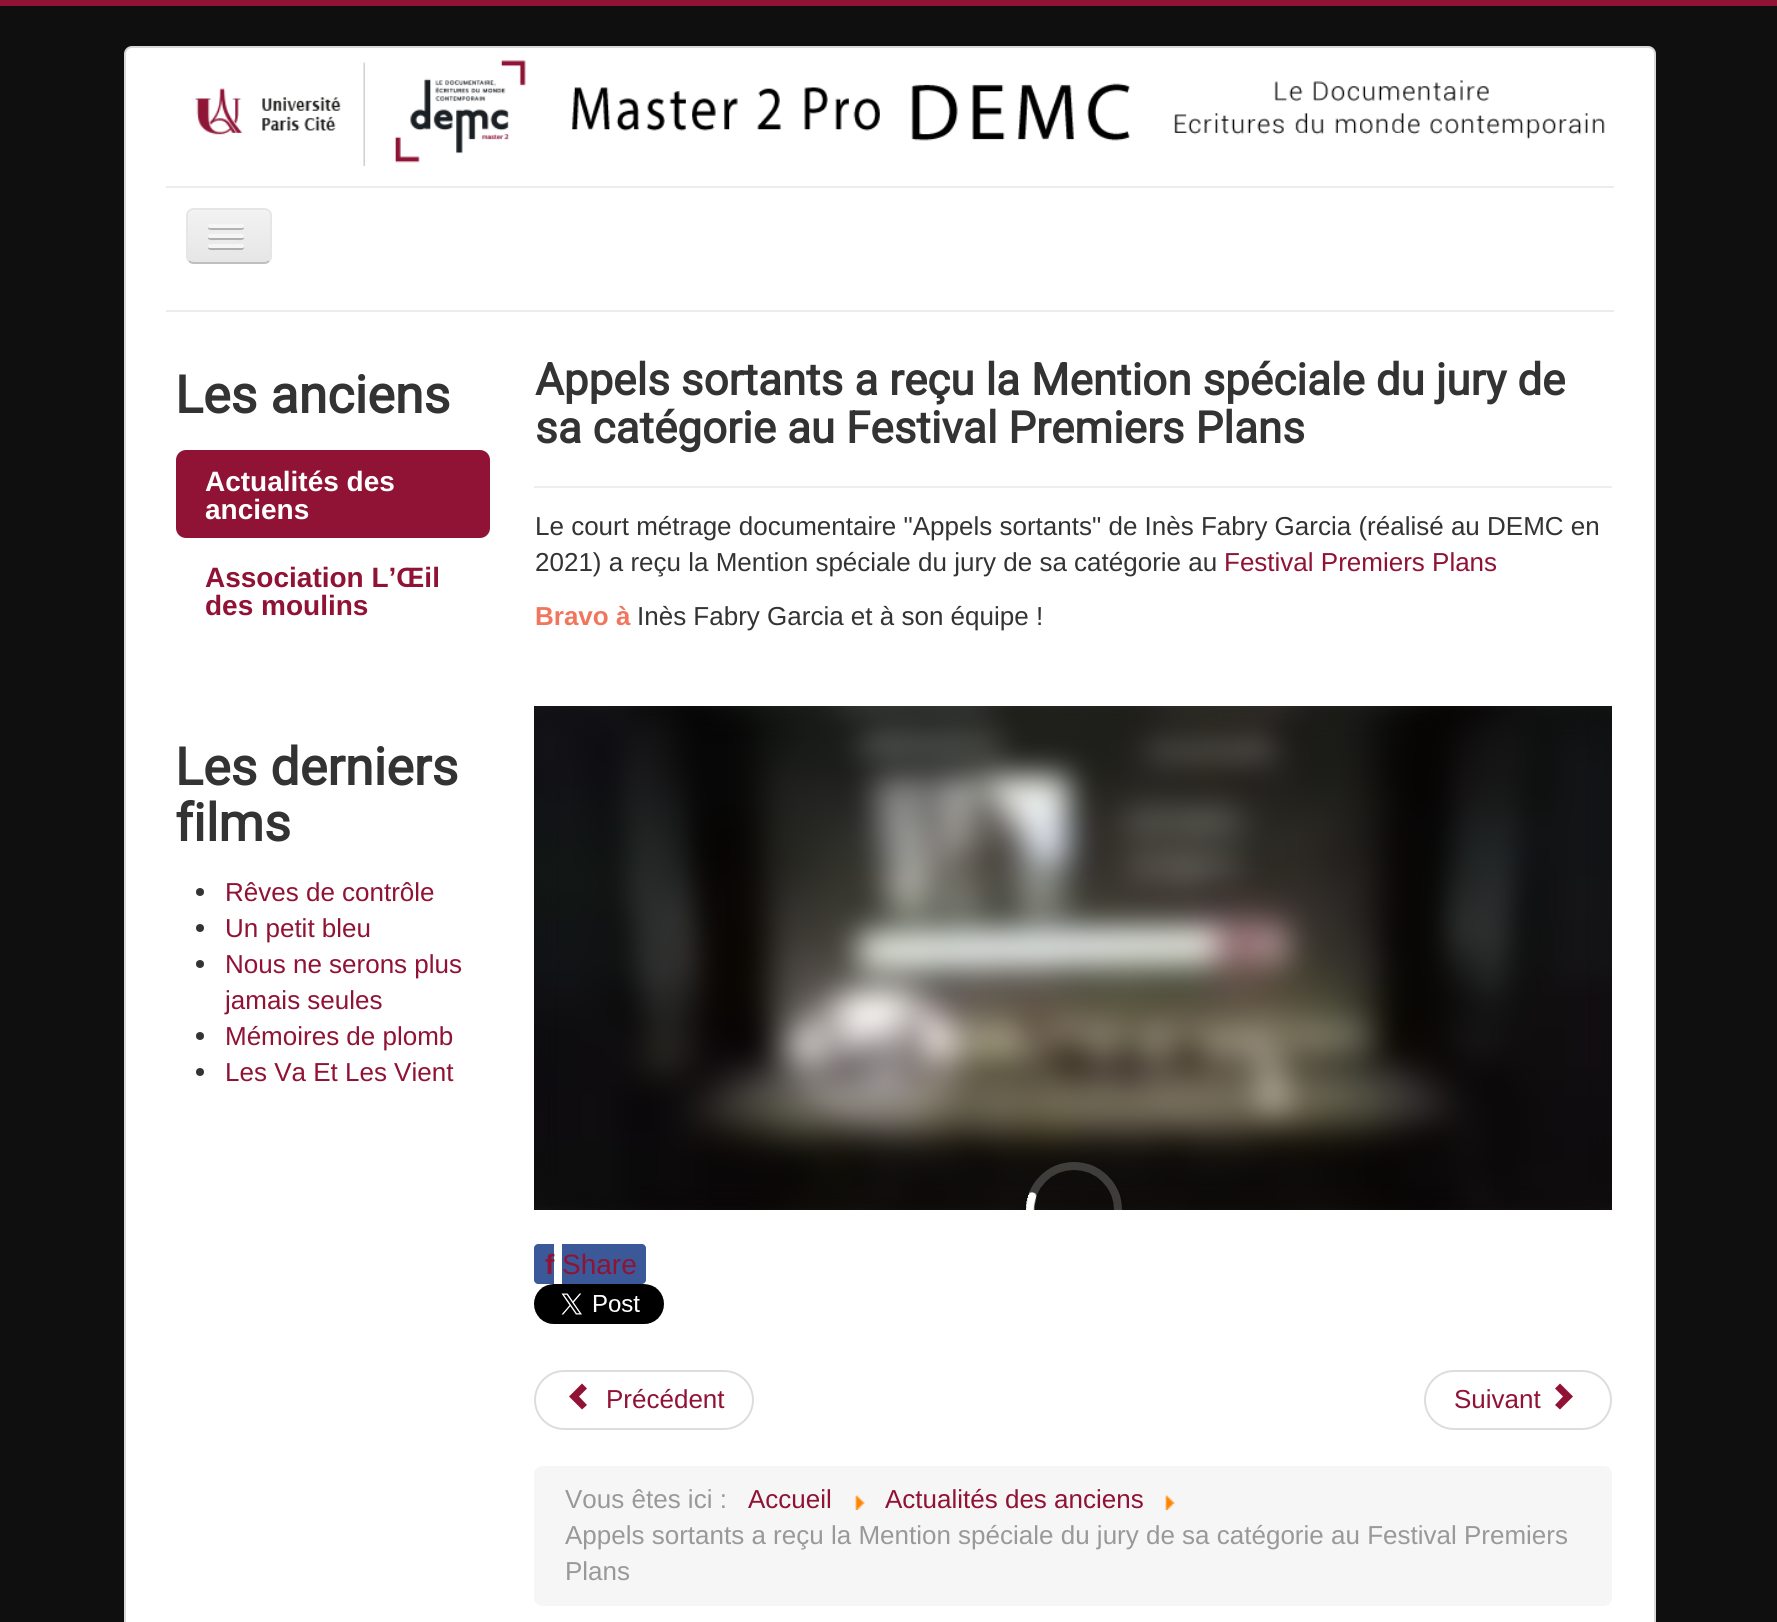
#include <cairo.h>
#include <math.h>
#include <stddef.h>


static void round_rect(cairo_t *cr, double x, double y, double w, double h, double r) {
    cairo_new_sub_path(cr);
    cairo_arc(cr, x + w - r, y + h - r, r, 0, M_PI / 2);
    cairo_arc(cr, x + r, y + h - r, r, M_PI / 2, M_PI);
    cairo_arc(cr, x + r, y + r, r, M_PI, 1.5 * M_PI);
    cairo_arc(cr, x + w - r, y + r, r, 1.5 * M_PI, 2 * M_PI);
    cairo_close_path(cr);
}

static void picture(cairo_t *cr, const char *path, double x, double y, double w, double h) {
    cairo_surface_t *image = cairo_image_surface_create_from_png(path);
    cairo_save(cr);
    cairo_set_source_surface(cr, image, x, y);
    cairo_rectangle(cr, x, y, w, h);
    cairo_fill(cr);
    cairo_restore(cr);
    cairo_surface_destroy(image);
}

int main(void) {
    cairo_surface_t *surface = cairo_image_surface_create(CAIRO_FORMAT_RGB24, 1777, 1622);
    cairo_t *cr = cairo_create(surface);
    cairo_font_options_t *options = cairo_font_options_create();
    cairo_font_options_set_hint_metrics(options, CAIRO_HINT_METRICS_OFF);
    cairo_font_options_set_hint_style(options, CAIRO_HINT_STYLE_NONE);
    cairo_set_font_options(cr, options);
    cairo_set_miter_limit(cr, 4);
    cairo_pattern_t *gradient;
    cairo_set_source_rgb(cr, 0.059, 0.059, 0.059);
    cairo_paint(cr);
    cairo_set_source_rgb(cr, 0.565, 0.071, 0.208);
    cairo_rectangle(cr, 0, 0, 1777, 6);
    cairo_fill(cr);
    cairo_set_source_rgb(cr, 1, 1, 1);
    round_rect(cr, 124, 46, 1532, 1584, 8);
    cairo_fill(cr);
    round_rect(cr, 125, 47, 1530, 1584, 7);
    cairo_set_source_rgba(cr, 0, 0, 0, 0.15);
    cairo_stroke(cr);
    picture(cr, "img1.png", 195, 60, 1410, 106);
    cairo_set_source_rgb(cr, 0.925, 0.925, 0.925);
    cairo_rectangle(cr, 166, 186, 1448, 2);
    cairo_fill(cr);
    cairo_rectangle(cr, 166, 310, 1448, 2);
    cairo_fill(cr);
    cairo_save(cr);
    round_rect(cr, 186, 208, 86, 56, 8);
    cairo_clip(cr);
    gradient = cairo_pattern_create_linear(229, 210, 229, 262);
    cairo_pattern_add_color_stop_rgba(gradient, 0, 0.949, 0.949, 0.949, 1);
    cairo_pattern_add_color_stop_rgba(gradient, 1, 0.902, 0.902, 0.902, 1);
    cairo_set_source(cr, gradient);
    cairo_pattern_destroy(gradient);
    cairo_rectangle(cr, 186, 210, 86, 52);
    cairo_fill(cr);
    cairo_restore(cr);
    cairo_set_source_rgb(cr, 0.953, 0.953, 0.953);
    cairo_new_path(cr);
    cairo_move_to(cr, 194, 212);
    cairo_line_to(cr, 264, 212);
    cairo_curve_to(cr, 267, 212, 270, 215, 270, 218);
    cairo_curve_to(cr, 270, 207, 261, 210, 252, 210);
    cairo_line_to(cr, 206, 210);
    cairo_curve_to(cr, 197, 210, 188, 207, 188, 218);
    cairo_curve_to(cr, 188, 215, 191, 212, 194, 212);
    cairo_close_path(cr);
    cairo_fill(cr);
    cairo_new_path(cr);
    cairo_move_to(cr, 269, 261);
    cairo_curve_to(cr, 267.5, 262.5, 266, 263, 264, 263);
    cairo_line_to(cr, 194, 263);
    cairo_curve_to(cr, 192, 263, 190.5, 262.5, 189, 261);
    cairo_set_source_rgb(cr, 0.749, 0.749, 0.749);
    cairo_stroke(cr);
    cairo_new_path(cr);
    cairo_move_to(cr, 189, 261);
    cairo_curve_to(cr, 187.5, 259.5, 187, 258, 187, 256);
    cairo_line_to(cr, 187, 216);
    cairo_curve_to(cr, 187, 214, 187.5, 212.5, 189, 211);
    cairo_curve_to(cr, 190.5, 209.5, 192, 209, 194, 209);
    cairo_line_to(cr, 264, 209);
    cairo_curve_to(cr, 266, 209, 267.5, 209.5, 269, 211);
    cairo_curve_to(cr, 270.5, 212.5, 271, 214, 271, 216);
    cairo_line_to(cr, 271, 256);
    cairo_curve_to(cr, 271, 258, 270.5, 259.5, 269, 261);
    cairo_set_source_rgb(cr, 0.902, 0.902, 0.902);
    cairo_stroke(cr);
    cairo_set_source_rgb(cr, 0.702, 0.702, 0.702);
    cairo_new_path(cr);
    cairo_move_to(cr, 208.5, 227);
    cairo_curve_to(cr, 206, 231, 215, 230, 215.5, 230);
    cairo_line_to(cr, 236.5, 230);
    cairo_curve_to(cr, 237, 230, 246, 231, 243.5, 227);
    cairo_curve_to(cr, 243.5, 227.5, 242.5, 228, 242, 228);
    cairo_line_to(cr, 210, 228);
    cairo_curve_to(cr, 209.5, 228, 208.5, 227.5, 208.5, 227);
    cairo_close_path(cr);
    cairo_fill(cr);
    cairo_set_source_rgb(cr, 0.961, 0.961, 0.961);
    round_rect(cr, 208, 224, 36, 4, 2);
    cairo_fill(cr);
    cairo_set_source_rgb(cr, 0.69, 0.69, 0.69);
    cairo_new_path(cr);
    cairo_move_to(cr, 208.5, 237);
    cairo_curve_to(cr, 206, 241, 215, 240, 215.5, 240);
    cairo_line_to(cr, 236.5, 240);
    cairo_curve_to(cr, 237, 240, 246, 241, 243.5, 237);
    cairo_curve_to(cr, 243.5, 237.5, 242.5, 238, 242, 238);
    cairo_line_to(cr, 210, 238);
    cairo_curve_to(cr, 209.5, 238, 208.5, 237.5, 208.5, 237);
    cairo_close_path(cr);
    cairo_fill(cr);
    cairo_set_source_rgb(cr, 0.961, 0.961, 0.961);
    round_rect(cr, 208, 234, 36, 4, 2);
    cairo_fill(cr);
    cairo_set_source_rgb(cr, 0.686, 0.686, 0.686);
    cairo_new_path(cr);
    cairo_move_to(cr, 208.5, 247);
    cairo_curve_to(cr, 206, 251, 215, 250, 215.5, 250);
    cairo_line_to(cr, 236.5, 250);
    cairo_curve_to(cr, 237, 250, 246, 251, 243.5, 247);
    cairo_curve_to(cr, 243.5, 247.5, 242.5, 248, 242, 248);
    cairo_line_to(cr, 210, 248);
    cairo_curve_to(cr, 209.5, 248, 208.5, 247.5, 208.5, 247);
    cairo_close_path(cr);
    cairo_fill(cr);
    cairo_set_source_rgb(cr, 0.961, 0.961, 0.961);
    round_rect(cr, 208, 244, 36, 4, 2);
    cairo_fill(cr);
    cairo_select_font_face(cr, "Roboto", CAIRO_FONT_SLANT_NORMAL, CAIRO_FONT_WEIGHT_BOLD);
    cairo_set_font_size(cr, 52);
    cairo_set_source_rgb(cr, 0.2, 0.2, 0.2);
    cairo_move_to(cr, 175, 413);
    cairo_show_text(cr, "Les anciens");
    cairo_set_source_rgb(cr, 0.565, 0.071, 0.208);
    round_rect(cr, 176, 450, 314, 88, 10);
    cairo_fill(cr);
    cairo_select_font_face(cr, "Liberation Sans", CAIRO_FONT_SLANT_NORMAL, CAIRO_FONT_WEIGHT_BOLD);
    cairo_set_font_size(cr, 28);
    cairo_set_source_rgb(cr, 1, 1, 1);
    cairo_move_to(cr, 205, 491);
    cairo_show_text(cr, "Actualités des");
    cairo_move_to(cr, 205, 519);
    cairo_show_text(cr, "anciens");
    cairo_set_source_rgb(cr, 0.565, 0.071, 0.208);
    cairo_move_to(cr, 205, 587);
    cairo_show_text(cr, "Association L’Œil");
    cairo_move_to(cr, 205, 615);
    cairo_show_text(cr, "des moulins");
    cairo_select_font_face(cr, "Roboto", CAIRO_FONT_SLANT_NORMAL, CAIRO_FONT_WEIGHT_BOLD);
    cairo_set_font_size(cr, 52);
    cairo_set_source_rgb(cr, 0.2, 0.2, 0.2);
    cairo_move_to(cr, 175, 785);
    cairo_show_text(cr, "Les derniers");
    cairo_move_to(cr, 175, 841);
    cairo_show_text(cr, "films");
    cairo_new_path(cr);
    cairo_arc(cr, 200, 892, 4, 0, 2 * M_PI);
    cairo_fill(cr);
    cairo_select_font_face(cr, "Liberation Sans", CAIRO_FONT_SLANT_NORMAL, CAIRO_FONT_WEIGHT_NORMAL);
    cairo_set_font_size(cr, 26);
    cairo_set_source_rgb(cr, 0.565, 0.071, 0.208);
    cairo_move_to(cr, 225, 901);
    cairo_show_text(cr, "Rêves de contrôle");
    cairo_set_source_rgb(cr, 0.2, 0.2, 0.2);
    cairo_new_path(cr);
    cairo_arc(cr, 200, 928, 4, 0, 2 * M_PI);
    cairo_fill(cr);
    cairo_set_source_rgb(cr, 0.565, 0.071, 0.208);
    cairo_move_to(cr, 225, 937);
    cairo_show_text(cr, "Un petit bleu");
    cairo_set_source_rgb(cr, 0.2, 0.2, 0.2);
    cairo_new_path(cr);
    cairo_arc(cr, 200, 964, 4, 0, 2 * M_PI);
    cairo_fill(cr);
    cairo_set_source_rgb(cr, 0.565, 0.071, 0.208);
    cairo_move_to(cr, 225, 973);
    cairo_show_text(cr, "Nous ne serons plus");
    cairo_move_to(cr, 225, 1009);
    cairo_show_text(cr, "jamais seules");
    cairo_set_source_rgb(cr, 0.2, 0.2, 0.2);
    cairo_new_path(cr);
    cairo_arc(cr, 200, 1036, 4, 0, 2 * M_PI);
    cairo_fill(cr);
    cairo_set_source_rgb(cr, 0.565, 0.071, 0.208);
    cairo_move_to(cr, 225, 1045);
    cairo_show_text(cr, "Mémoires de plomb");
    cairo_set_source_rgb(cr, 0.2, 0.2, 0.2);
    cairo_new_path(cr);
    cairo_arc(cr, 200, 1072, 4, 0, 2 * M_PI);
    cairo_fill(cr);
    cairo_set_source_rgb(cr, 0.565, 0.071, 0.208);
    cairo_move_to(cr, 225, 1081);
    cairo_show_text(cr, "Les Va Et Les Vient");
    cairo_set_source_rgb(cr, 0.933, 0.933, 0.933);
    cairo_rectangle(cr, 534, 486, 1078, 2);
    cairo_fill(cr);
    cairo_select_font_face(cr, "Roboto", CAIRO_FONT_SLANT_NORMAL, CAIRO_FONT_WEIGHT_BOLD);
    cairo_set_font_size(cr, 44);
    cairo_set_source_rgb(cr, 0.2, 0.2, 0.2);
    cairo_move_to(cr, 535, 395);
    cairo_show_text(cr, "Appels sortants a reçu la Mention spéciale du jury de");
    cairo_move_to(cr, 535, 443);
    cairo_show_text(cr, "sa catégorie au Festival Premiers Plans");
    cairo_select_font_face(cr, "Liberation Sans", CAIRO_FONT_SLANT_NORMAL, CAIRO_FONT_WEIGHT_NORMAL);
    cairo_set_font_size(cr, 26);
    cairo_move_to(cr, 535, 535);
    cairo_show_text(cr, "Le court métrage documentaire \"Appels sortants\" de Inès Fabry Garcia (réalisé au DEMC en");
    cairo_move_to(cr, 535, 571);
    cairo_show_text(cr, "2021) a reçu la Mention spéciale du jury de sa catégorie au");
    cairo_set_source_rgb(cr, 0.565, 0.071, 0.208);
    cairo_move_to(cr, 1224, 571);
    cairo_show_text(cr, "Festival Premiers Plans");
    cairo_select_font_face(cr, "Liberation Sans", CAIRO_FONT_SLANT_NORMAL, CAIRO_FONT_WEIGHT_BOLD);
    cairo_set_source_rgb(cr, 0.945, 0.463, 0.369);
    cairo_move_to(cr, 535, 625);
    cairo_show_text(cr, "Bravo à");
    cairo_select_font_face(cr, "Liberation Sans", CAIRO_FONT_SLANT_NORMAL, CAIRO_FONT_WEIGHT_NORMAL);
    cairo_set_source_rgb(cr, 0.2, 0.2, 0.2);
    cairo_move_to(cr, 637, 625);
    cairo_show_text(cr, "Inès Fabry Garcia et à son équipe !");
    picture(cr, "img2.png", 534, 706, 1078, 504);
    cairo_set_source_rgb(cr, 0.231, 0.349, 0.596);
    cairo_new_path(cr);
    cairo_move_to(cr, 538, 1244);
    cairo_line_to(cr, 554, 1244);
    cairo_line_to(cr, 554, 1284);
    cairo_line_to(cr, 538, 1284);
    cairo_curve_to(cr, 536, 1284, 534, 1282, 534, 1280);
    cairo_line_to(cr, 534, 1248);
    cairo_curve_to(cr, 534, 1246, 536, 1244, 538, 1244);
    cairo_close_path(cr);
    cairo_fill(cr);
    cairo_select_font_face(cr, "Liberation Sans", CAIRO_FONT_SLANT_NORMAL, CAIRO_FONT_WEIGHT_BOLD);
    cairo_set_font_size(cr, 28);
    cairo_set_source_rgb(cr, 0.565, 0.071, 0.208);
    cairo_move_to(cr, 545, 1274);
    cairo_show_text(cr, "f");
    cairo_set_source_rgb(cr, 0.231, 0.349, 0.596);
    cairo_new_path(cr);
    cairo_move_to(cr, 562, 1244);
    cairo_line_to(cr, 642, 1244);
    cairo_curve_to(cr, 644, 1244, 646, 1246, 646, 1248);
    cairo_line_to(cr, 646, 1280);
    cairo_curve_to(cr, 646, 1282, 644, 1284, 642, 1284);
    cairo_line_to(cr, 562, 1284);
    cairo_close_path(cr);
    cairo_fill(cr);
    cairo_select_font_face(cr, "Liberation Sans", CAIRO_FONT_SLANT_NORMAL, CAIRO_FONT_WEIGHT_NORMAL);
    cairo_set_source_rgb(cr, 0.565, 0.071, 0.208);
    cairo_move_to(cr, 562, 1274);
    cairo_show_text(cr, "Share");
    picture(cr, "img3.png", 534, 1284, 130, 40);
    round_rect(cr, 535, 1371, 218, 58, 29);
    cairo_set_source_rgb(cr, 0.867, 0.867, 0.867);
    cairo_stroke(cr);
    cairo_set_source_rgb(cr, 0.565, 0.071, 0.208);
    cairo_new_path(cr);
    cairo_move_to(cr, 582, 1409.5);
    cairo_line_to(cr, 569, 1396.5);
    cairo_line_to(cr, 582, 1383.5);
    cairo_line_to(cr, 587, 1388.5);
    cairo_line_to(cr, 579, 1396.5);
    cairo_line_to(cr, 587, 1405);
    cairo_close_path(cr);
    cairo_fill(cr);
    cairo_set_font_size(cr, 26);
    cairo_move_to(cr, 606, 1408);
    cairo_show_text(cr, "Précédent");
    round_rect(cr, 1425, 1371, 186, 58, 29);
    cairo_set_source_rgb(cr, 0.867, 0.867, 0.867);
    cairo_stroke(cr);
    cairo_set_source_rgb(cr, 0.565, 0.071, 0.208);
    cairo_move_to(cr, 1454, 1408);
    cairo_show_text(cr, "Suivant");
    cairo_new_path(cr);
    cairo_move_to(cr, 1560, 1383.5);
    cairo_line_to(cr, 1573, 1396.5);
    cairo_line_to(cr, 1560, 1409.5);
    cairo_line_to(cr, 1555, 1405);
    cairo_line_to(cr, 1563, 1396.5);
    cairo_line_to(cr, 1555, 1388.5);
    cairo_close_path(cr);
    cairo_fill(cr);
    cairo_set_source_rgb(cr, 0.961, 0.961, 0.961);
    round_rect(cr, 534, 1466, 1078, 140, 8);
    cairo_fill(cr);
    cairo_set_source_rgb(cr, 0.6, 0.6, 0.6);
    cairo_move_to(cr, 565, 1508);
    cairo_show_text(cr, "Vous êtes ici :");
    cairo_set_source_rgb(cr, 0.565, 0.071, 0.208);
    cairo_move_to(cr, 748, 1508);
    cairo_show_text(cr, "Accueil");
    picture(cr, "img4.png", 855, 1495, 10, 15);
    cairo_move_to(cr, 885, 1508);
    cairo_show_text(cr, "Actualités des anciens");
    picture(cr, "img4.png", 1165, 1495, 10, 15);
    cairo_set_source_rgb(cr, 0.6, 0.6, 0.6);
    cairo_move_to(cr, 565, 1544);
    cairo_show_text(cr, "Appels sortants a reçu la Mention spéciale du jury de sa catégorie au Festival Premiers");
    cairo_move_to(cr, 565, 1580);
    cairo_show_text(cr, "Plans");
    cairo_surface_write_to_png(surface, "page.png");
    cairo_font_options_destroy(options);
    cairo_destroy(cr);
    cairo_surface_destroy(surface);
    return 0;
}
